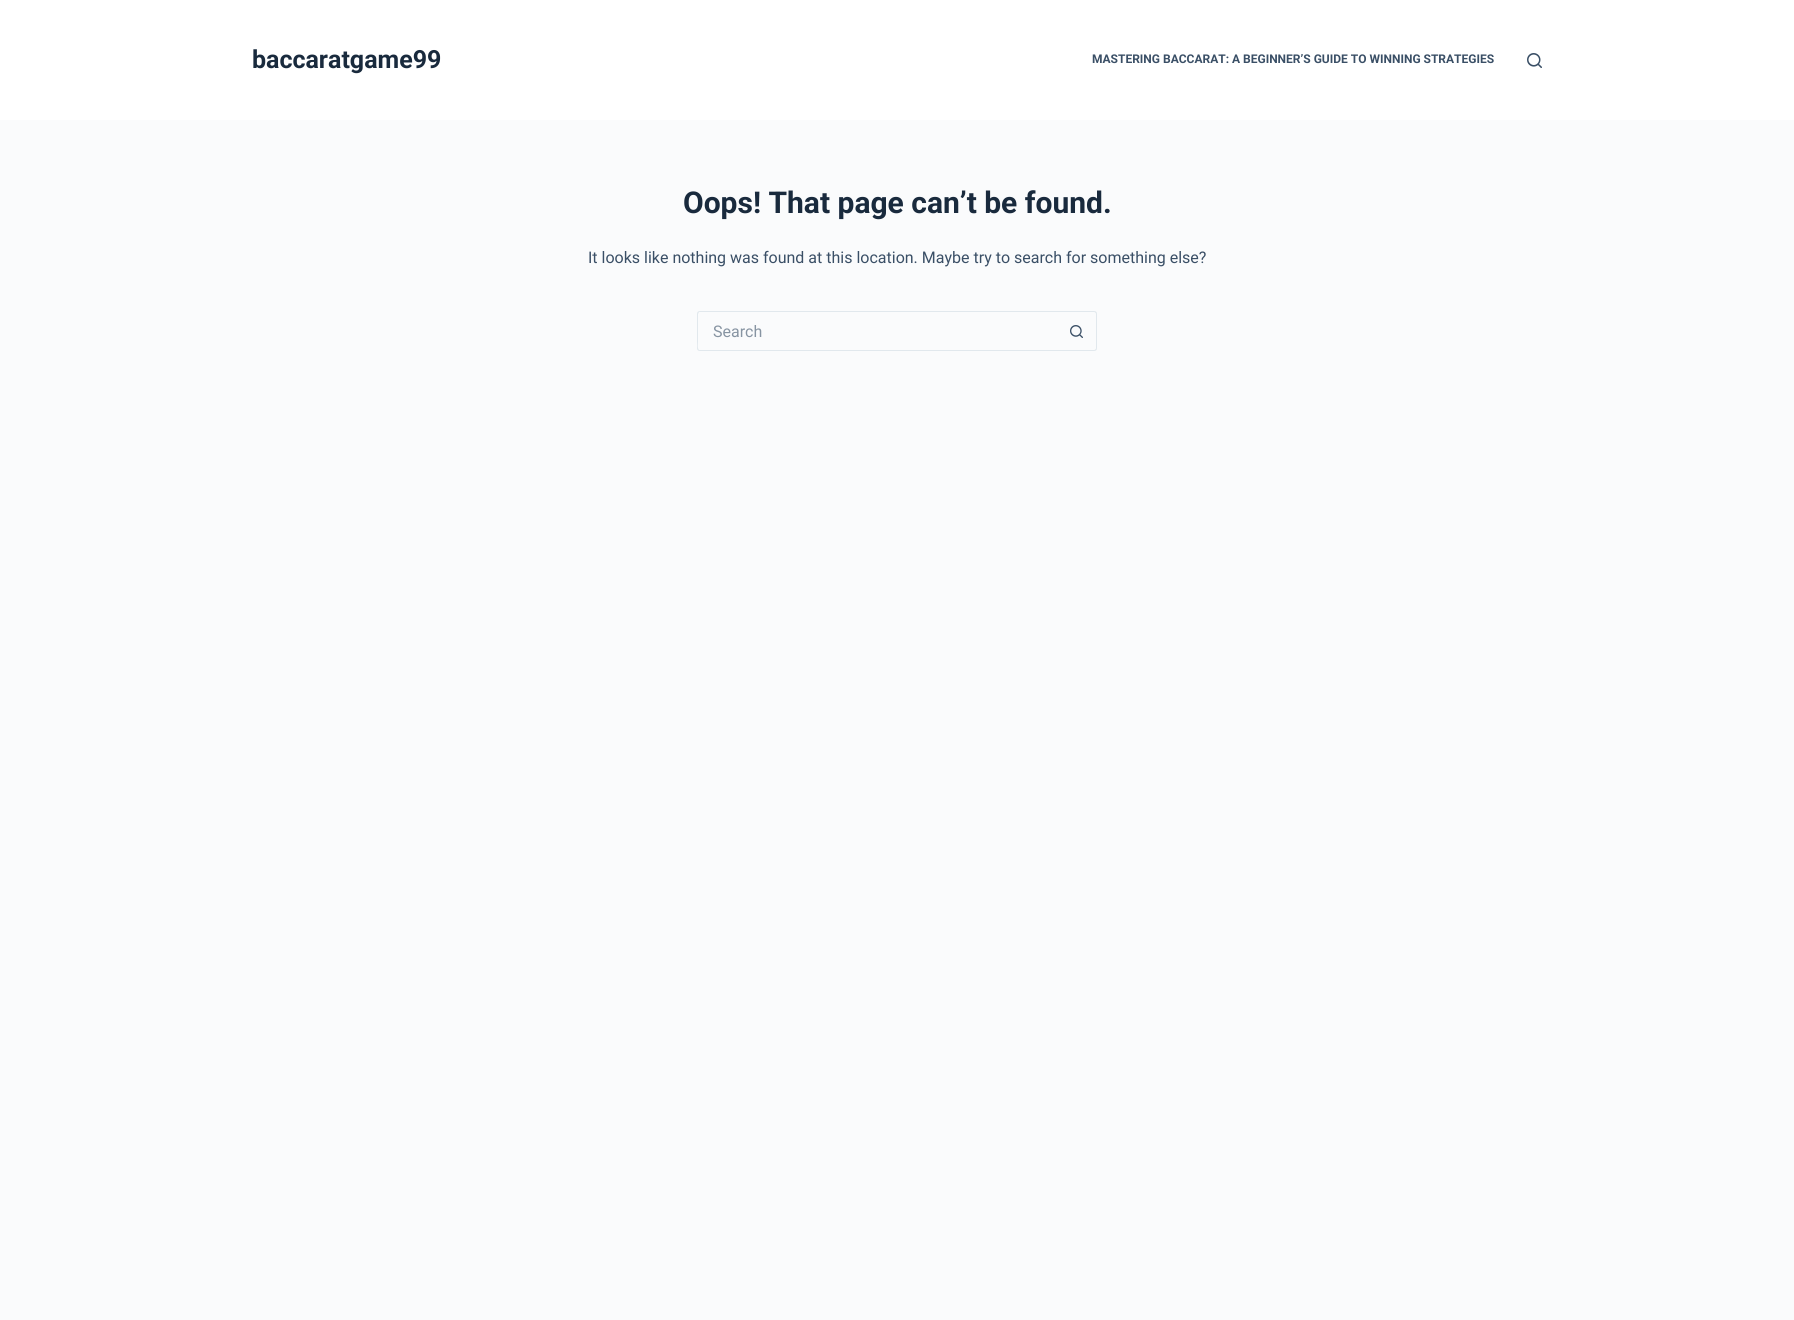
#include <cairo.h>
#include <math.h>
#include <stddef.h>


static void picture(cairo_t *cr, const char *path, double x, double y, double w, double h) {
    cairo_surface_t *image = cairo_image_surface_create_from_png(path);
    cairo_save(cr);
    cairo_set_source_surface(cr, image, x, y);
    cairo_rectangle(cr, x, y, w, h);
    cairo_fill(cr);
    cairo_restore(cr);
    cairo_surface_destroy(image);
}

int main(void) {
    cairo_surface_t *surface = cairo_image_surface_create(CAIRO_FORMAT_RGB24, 1794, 1320);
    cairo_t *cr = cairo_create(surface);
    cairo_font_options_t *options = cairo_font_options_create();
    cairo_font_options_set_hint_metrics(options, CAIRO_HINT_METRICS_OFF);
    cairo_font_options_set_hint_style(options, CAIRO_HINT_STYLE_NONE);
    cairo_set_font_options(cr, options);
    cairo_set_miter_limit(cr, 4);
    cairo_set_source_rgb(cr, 0.98, 0.984, 0.988);
    cairo_paint(cr);
    cairo_set_source_rgb(cr, 1, 1, 1);
    cairo_rectangle(cr, 0, 0, 1794, 120);
    cairo_fill(cr);
    cairo_select_font_face(cr, "Roboto", CAIRO_FONT_SLANT_NORMAL, CAIRO_FONT_WEIGHT_BOLD);
    cairo_set_font_size(cr, 25);
    cairo_set_source_rgb(cr, 0.098, 0.165, 0.239);
    cairo_move_to(cr, 252, 68);
    cairo_show_text(cr, "baccaratgame99");
    cairo_set_font_size(cr, 12);
    cairo_set_source_rgb(cr, 0.227, 0.31, 0.4);
    cairo_move_to(cr, 1092, 63);
    cairo_show_text(cr, "MASTERING BACCARAT: A BEGINNER’S GUIDE TO WINNING STRATEGIES");
    picture(cr, "img1.png", 1527, 53, 15, 15);
    cairo_set_font_size(cr, 30);
    cairo_set_source_rgb(cr, 0.098, 0.165, 0.239);
    cairo_move_to(cr, 683, 213);
    cairo_show_text(cr, "Oops! That page can’t be found.");
    cairo_select_font_face(cr, "Roboto", CAIRO_FONT_SLANT_NORMAL, CAIRO_FONT_WEIGHT_NORMAL);
    cairo_set_font_size(cr, 16);
    cairo_set_source_rgb(cr, 0.227, 0.31, 0.4);
    cairo_move_to(cr, 588, 263);
    cairo_show_text(cr, "It looks like nothing was found at this location. Maybe try to search for something else?");
    cairo_set_source_rgb(cr, 0.882, 0.91, 0.929);
    cairo_set_fill_rule(cr, CAIRO_FILL_RULE_EVEN_ODD);
    cairo_new_path(cr);
    cairo_move_to(cr, 700, 311);
    cairo_line_to(cr, 1057, 311);
    cairo_line_to(cr, 1057, 351);
    cairo_line_to(cr, 700, 351);
    cairo_curve_to(cr, 698, 351, 697, 350, 697, 348);
    cairo_line_to(cr, 697, 314);
    cairo_curve_to(cr, 697, 312, 698, 311, 700, 311);
    cairo_close_path(cr);
    cairo_move_to(cr, 700, 312);
    cairo_line_to(cr, 1057, 312);
    cairo_line_to(cr, 1057, 350);
    cairo_line_to(cr, 699, 350);
    cairo_curve_to(cr, 697, 348, 698, 343, 698, 342);
    cairo_line_to(cr, 698, 314);
    cairo_line_to(cr, 699, 312);
    cairo_close_path(cr);
    cairo_fill(cr);
    cairo_set_source_rgb(cr, 0.529, 0.58, 0.635);
    cairo_move_to(cr, 713, 337);
    cairo_show_text(cr, "Search");
    cairo_set_source_rgb(cr, 0.882, 0.91, 0.929);
    cairo_new_path(cr);
    cairo_move_to(cr, 1057, 311);
    cairo_line_to(cr, 1094, 311);
    cairo_curve_to(cr, 1096, 311, 1097, 312, 1097, 314);
    cairo_line_to(cr, 1097, 348);
    cairo_curve_to(cr, 1097, 350, 1096, 351, 1094, 351);
    cairo_line_to(cr, 1057, 351);
    cairo_close_path(cr);
    cairo_move_to(cr, 1057, 312);
    cairo_line_to(cr, 1094, 312);
    cairo_curve_to(cr, 1095, 312, 1096, 313, 1096, 314);
    cairo_line_to(cr, 1096, 348);
    cairo_curve_to(cr, 1096, 349, 1095, 350, 1094, 350);
    cairo_line_to(cr, 1057, 350);
    cairo_close_path(cr);
    cairo_fill(cr);
    picture(cr, "img2.png", 1070, 325, 13, 13);
    cairo_surface_write_to_png(surface, "page.png");
    cairo_font_options_destroy(options);
    cairo_destroy(cr);
    cairo_surface_destroy(surface);
    return 0;
}
